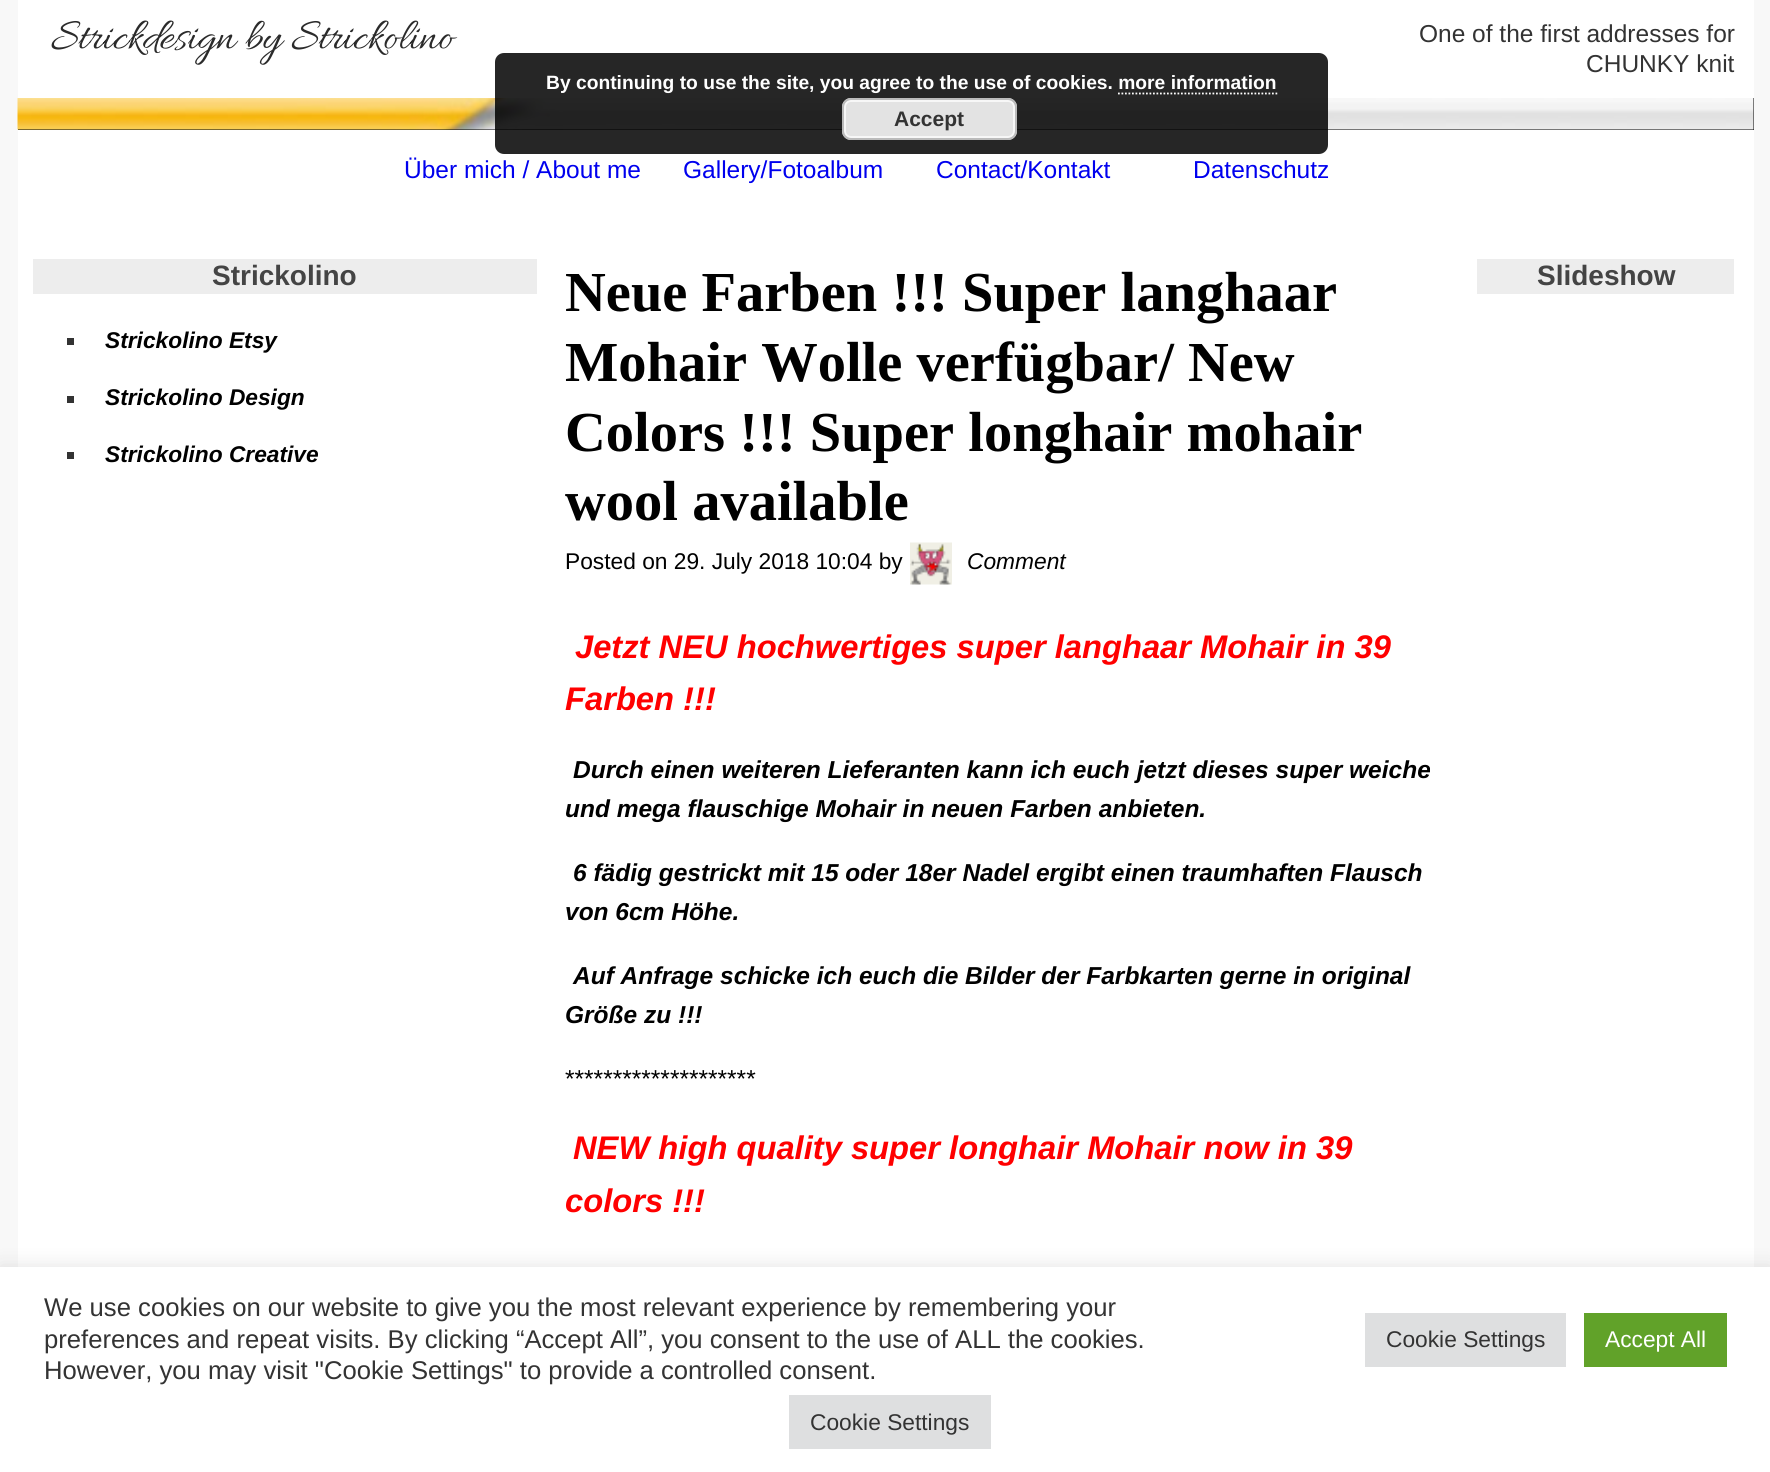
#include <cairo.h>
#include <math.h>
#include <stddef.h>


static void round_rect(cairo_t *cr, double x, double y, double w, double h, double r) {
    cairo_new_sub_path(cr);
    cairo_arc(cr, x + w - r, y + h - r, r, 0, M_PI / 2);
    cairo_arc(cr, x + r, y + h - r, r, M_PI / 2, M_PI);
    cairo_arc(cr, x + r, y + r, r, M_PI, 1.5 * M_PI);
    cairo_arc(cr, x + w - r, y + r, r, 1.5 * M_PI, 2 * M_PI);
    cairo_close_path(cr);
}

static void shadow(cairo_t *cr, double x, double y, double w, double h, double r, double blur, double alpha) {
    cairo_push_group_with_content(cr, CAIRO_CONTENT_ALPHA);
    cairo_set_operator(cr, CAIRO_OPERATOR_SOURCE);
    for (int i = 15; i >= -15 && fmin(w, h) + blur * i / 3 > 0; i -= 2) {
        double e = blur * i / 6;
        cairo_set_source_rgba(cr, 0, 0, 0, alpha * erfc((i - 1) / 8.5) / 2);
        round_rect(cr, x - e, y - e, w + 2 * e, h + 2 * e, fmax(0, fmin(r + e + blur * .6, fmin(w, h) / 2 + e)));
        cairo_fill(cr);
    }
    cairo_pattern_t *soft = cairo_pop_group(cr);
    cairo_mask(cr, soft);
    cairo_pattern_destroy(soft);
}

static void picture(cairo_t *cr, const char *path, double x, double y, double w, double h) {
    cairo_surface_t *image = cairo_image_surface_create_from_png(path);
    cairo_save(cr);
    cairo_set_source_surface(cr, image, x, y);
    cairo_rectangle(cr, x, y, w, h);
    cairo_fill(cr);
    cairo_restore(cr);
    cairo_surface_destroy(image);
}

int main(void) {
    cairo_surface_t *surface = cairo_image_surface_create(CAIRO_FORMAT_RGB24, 1770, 1472);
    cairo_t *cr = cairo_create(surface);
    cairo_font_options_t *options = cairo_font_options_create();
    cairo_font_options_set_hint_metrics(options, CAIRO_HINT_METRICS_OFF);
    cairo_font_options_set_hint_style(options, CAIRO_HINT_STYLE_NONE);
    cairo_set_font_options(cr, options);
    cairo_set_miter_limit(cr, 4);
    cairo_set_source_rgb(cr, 0.969, 0.969, 0.969);
    cairo_paint(cr);
    cairo_set_source_rgb(cr, 1, 1, 1);
    cairo_rectangle(cr, 18, 0, 1736, 1267);
    cairo_fill(cr);
    cairo_select_font_face(cr, "Allura", CAIRO_FONT_SLANT_NORMAL, CAIRO_FONT_WEIGHT_NORMAL);
    cairo_set_font_size(cr, 45.5);
    cairo_set_source_rgb(cr, 0.169, 0.169, 0.169);
    cairo_move_to(cr, 51, 48);
    cairo_show_text(cr, "Strickdesign by Strickolino");
    cairo_select_font_face(cr, "Liberation Sans", CAIRO_FONT_SLANT_NORMAL, CAIRO_FONT_WEIGHT_NORMAL);
    cairo_set_font_size(cr, 24.5);
    cairo_set_source_rgb(cr, 0.2, 0.2, 0.2);
    cairo_move_to(cr, 1419, 42);
    cairo_show_text(cr, "One of the first addresses for");
    cairo_move_to(cr, 1586, 72);
    cairo_show_text(cr, "CHUNKY knit");
    cairo_set_source_rgb(cr, 0, 0, 0);
    cairo_rectangle(cr, 18, 98, 1736, 32);
    cairo_fill(cr);
    picture(cr, "img1.png", 17, 98, 1737, 32);
    cairo_set_source_rgb(cr, 0, 0, 0.933);
    cairo_move_to(cr, 404, 178);
    cairo_show_text(cr, "Über mich / About me");
    cairo_move_to(cr, 683, 178);
    cairo_show_text(cr, "Gallery/Fotoalbum");
    cairo_move_to(cr, 936, 178);
    cairo_show_text(cr, "Contact/Kontakt");
    cairo_move_to(cr, 1193, 178);
    cairo_show_text(cr, "Datenschutz");
    cairo_set_source_rgb(cr, 0.929, 0.929, 0.929);
    cairo_rectangle(cr, 33, 259, 504, 35);
    cairo_fill(cr);
    cairo_select_font_face(cr, "Liberation Sans", CAIRO_FONT_SLANT_NORMAL, CAIRO_FONT_WEIGHT_BOLD);
    cairo_set_font_size(cr, 28);
    cairo_set_source_rgb(cr, 0.267, 0.267, 0.267);
    cairo_move_to(cr, 212, 285);
    cairo_show_text(cr, "Strickolino");
    cairo_set_source_rgb(cr, 0.2, 0.2, 0.2);
    cairo_rectangle(cr, 67, 338, 7, 7);
    cairo_fill(cr);
    cairo_select_font_face(cr, "Liberation Sans", CAIRO_FONT_SLANT_ITALIC, CAIRO_FONT_WEIGHT_BOLD);
    cairo_set_font_size(cr, 22.75);
    cairo_set_source_rgb(cr, 0, 0, 0);
    cairo_move_to(cr, 105, 348);
    cairo_show_text(cr, "Strickolino Etsy");
    cairo_set_source_rgb(cr, 0.2, 0.2, 0.2);
    cairo_rectangle(cr, 67, 396, 7, 7);
    cairo_fill(cr);
    cairo_set_source_rgb(cr, 0, 0, 0);
    cairo_move_to(cr, 105, 405);
    cairo_show_text(cr, "Strickolino Design");
    cairo_set_source_rgb(cr, 0.2, 0.2, 0.2);
    cairo_rectangle(cr, 67, 452, 7, 7);
    cairo_fill(cr);
    cairo_set_source_rgb(cr, 0, 0, 0);
    cairo_move_to(cr, 105, 462);
    cairo_show_text(cr, "Strickolino Creative");
    cairo_select_font_face(cr, "Liberation Serif", CAIRO_FONT_SLANT_NORMAL, CAIRO_FONT_WEIGHT_BOLD);
    cairo_set_font_size(cr, 56.5);
    cairo_move_to(cr, 565, 311);
    cairo_show_text(cr, "Neue Farben !!! Super langhaar");
    cairo_move_to(cr, 565, 381);
    cairo_show_text(cr, "Mohair Wolle verfügbar/ New");
    cairo_move_to(cr, 565, 451);
    cairo_show_text(cr, "Colors !!! Super longhair mohair");
    cairo_move_to(cr, 565, 520);
    cairo_show_text(cr, "wool available");
    cairo_select_font_face(cr, "Liberation Sans", CAIRO_FONT_SLANT_NORMAL, CAIRO_FONT_WEIGHT_NORMAL);
    cairo_set_font_size(cr, 22.75);
    cairo_move_to(cr, 565, 569);
    cairo_show_text(cr, "Posted on 29. July 2018 10:04 by");
    picture(cr, "img2.png", 910, 542, 42, 43);
    cairo_select_font_face(cr, "Liberation Sans", CAIRO_FONT_SLANT_ITALIC, CAIRO_FONT_WEIGHT_NORMAL);
    cairo_move_to(cr, 967, 569);
    cairo_show_text(cr, "Comment");
    cairo_select_font_face(cr, "Liberation Sans", CAIRO_FONT_SLANT_ITALIC, CAIRO_FONT_WEIGHT_BOLD);
    cairo_set_font_size(cr, 32.7);
    cairo_set_source_rgb(cr, 1, 0, 0);
    cairo_move_to(cr, 575, 658);
    cairo_show_text(cr, "Jetzt NEU hochwertiges super langhaar Mohair in 39");
    cairo_move_to(cr, 565, 710);
    cairo_show_text(cr, "Farben !!!");
    cairo_set_font_size(cr, 24.5);
    cairo_set_source_rgb(cr, 0, 0, 0);
    cairo_move_to(cr, 573, 778);
    cairo_show_text(cr, "Durch einen weiteren Lieferanten kann ich euch jetzt dieses super weiche");
    cairo_move_to(cr, 565, 817);
    cairo_show_text(cr, "und mega flauschige Mohair in neuen Farben anbieten.");
    cairo_move_to(cr, 573, 881);
    cairo_show_text(cr, "6 fädig gestrickt mit 15 oder 18er Nadel ergibt einen traumhaften Flausch");
    cairo_move_to(cr, 565, 920);
    cairo_show_text(cr, "von 6cm Höhe.");
    cairo_move_to(cr, 573, 984);
    cairo_show_text(cr, "Auf Anfrage schicke ich euch die Bilder der Farbkarten gerne in original");
    cairo_move_to(cr, 565, 1023);
    cairo_show_text(cr, "Größe zu !!!");
    cairo_select_font_face(cr, "Liberation Sans", CAIRO_FONT_SLANT_NORMAL, CAIRO_FONT_WEIGHT_NORMAL);
    cairo_move_to(cr, 565, 1087);
    cairo_show_text(cr, "********************");
    cairo_select_font_face(cr, "Liberation Sans", CAIRO_FONT_SLANT_ITALIC, CAIRO_FONT_WEIGHT_BOLD);
    cairo_set_font_size(cr, 32.7);
    cairo_set_source_rgb(cr, 1, 0, 0);
    cairo_move_to(cr, 573, 1159);
    cairo_show_text(cr, "NEW high quality super longhair Mohair now in 39");
    cairo_move_to(cr, 565, 1212);
    cairo_show_text(cr, "colors !!!");
    cairo_set_source_rgb(cr, 0.929, 0.929, 0.929);
    cairo_rectangle(cr, 1477, 259, 257, 35);
    cairo_fill(cr);
    cairo_select_font_face(cr, "Liberation Sans", CAIRO_FONT_SLANT_NORMAL, CAIRO_FONT_WEIGHT_BOLD);
    cairo_set_font_size(cr, 28);
    cairo_set_source_rgb(cr, 0.267, 0.267, 0.267);
    cairo_move_to(cr, 1537, 285);
    cairo_show_text(cr, "Slideshow");
    cairo_set_source_rgba(cr, 0, 0, 0, 0.85);
    round_rect(cr, 495, 53, 833, 101, 9);
    cairo_fill(cr);
    cairo_set_font_size(cr, 19.25);
    cairo_set_source_rgb(cr, 1, 1, 1);
    cairo_move_to(cr, 546, 89);
    cairo_show_text(cr, "By continuing to use the site, you agree to the use of cookies. more information");
    cairo_new_path(cr);
    cairo_move_to(cr, 1118, 93.5);
    cairo_line_to(cr, 1277.5, 93.5);
    cairo_set_line_width(cr, 1.8);
    cairo_set_dash(cr, (double[]){1.75, 1.75}, 2, 0);
    cairo_stroke(cr);
    cairo_set_source_rgb(cr, 0.89, 0.89, 0.89);
    round_rect(cr, 842, 98, 175, 42, 9);
    cairo_fill(cr);
    round_rect(cr, 845, 101, 169, 36, 6);
    cairo_set_source_rgb(cr, 0.965, 0.965, 0.965);
    cairo_set_line_width(cr, 2);
    cairo_set_dash(cr, NULL, 0, 0);
    cairo_stroke(cr);
    round_rect(cr, 843, 99, 173, 40, 8);
    cairo_set_source_rgb(cr, 0.733, 0.733, 0.733);
    cairo_stroke(cr);
    cairo_set_font_size(cr, 21);
    cairo_set_source_rgb(cr, 0.2, 0.2, 0.2);
    cairo_move_to(cr, 894, 126);
    cairo_show_text(cr, "Accept");
    cairo_set_source_rgb(cr, 0.675, 0.671, 0.671);
    shadow(cr, 0, 1265, 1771, 207, 0, 9, 0.3);
    cairo_set_source_rgb(cr, 1, 1, 1);
    cairo_rectangle(cr, 0, 1267, 1770, 205);
    cairo_fill(cr);
    cairo_select_font_face(cr, "Liberation Sans", CAIRO_FONT_SLANT_NORMAL, CAIRO_FONT_WEIGHT_NORMAL);
    cairo_set_font_size(cr, 25.65);
    cairo_set_source_rgb(cr, 0.2, 0.2, 0.2);
    cairo_move_to(cr, 44, 1316);
    cairo_show_text(cr, "We use cookies on our website to give you the most relevant experience by remembering your");
    cairo_move_to(cr, 44, 1348);
    cairo_show_text(cr, "preferences and repeat visits. By clicking “Accept All”, you consent to the use of ALL the cookies.");
    cairo_move_to(cr, 44, 1379);
    cairo_show_text(cr, "However, you may visit \"Cookie Settings\" to provide a controlled consent.");
    cairo_set_source_rgb(cr, 0.871, 0.875, 0.878);
    cairo_rectangle(cr, 1365, 1313, 201, 54);
    cairo_fill(cr);
    cairo_set_font_size(cr, 22.75);
    cairo_set_source_rgb(cr, 0.2, 0.2, 0.2);
    cairo_move_to(cr, 1386, 1347);
    cairo_show_text(cr, "Cookie Settings");
    cairo_set_source_rgb(cr, 0.38, 0.635, 0.161);
    cairo_rectangle(cr, 1584, 1313, 143, 54);
    cairo_fill(cr);
    cairo_set_source_rgb(cr, 1, 1, 1);
    cairo_move_to(cr, 1605, 1347);
    cairo_show_text(cr, "Accept All");
    cairo_set_source_rgb(cr, 0.871, 0.875, 0.878);
    cairo_rectangle(cr, 789, 1395, 202, 54);
    cairo_fill(cr);
    cairo_set_source_rgb(cr, 0.2, 0.2, 0.2);
    cairo_move_to(cr, 810, 1430);
    cairo_show_text(cr, "Cookie Settings");
    cairo_surface_write_to_png(surface, "page.png");
    cairo_font_options_destroy(options);
    cairo_destroy(cr);
    cairo_surface_destroy(surface);
    return 0;
}
